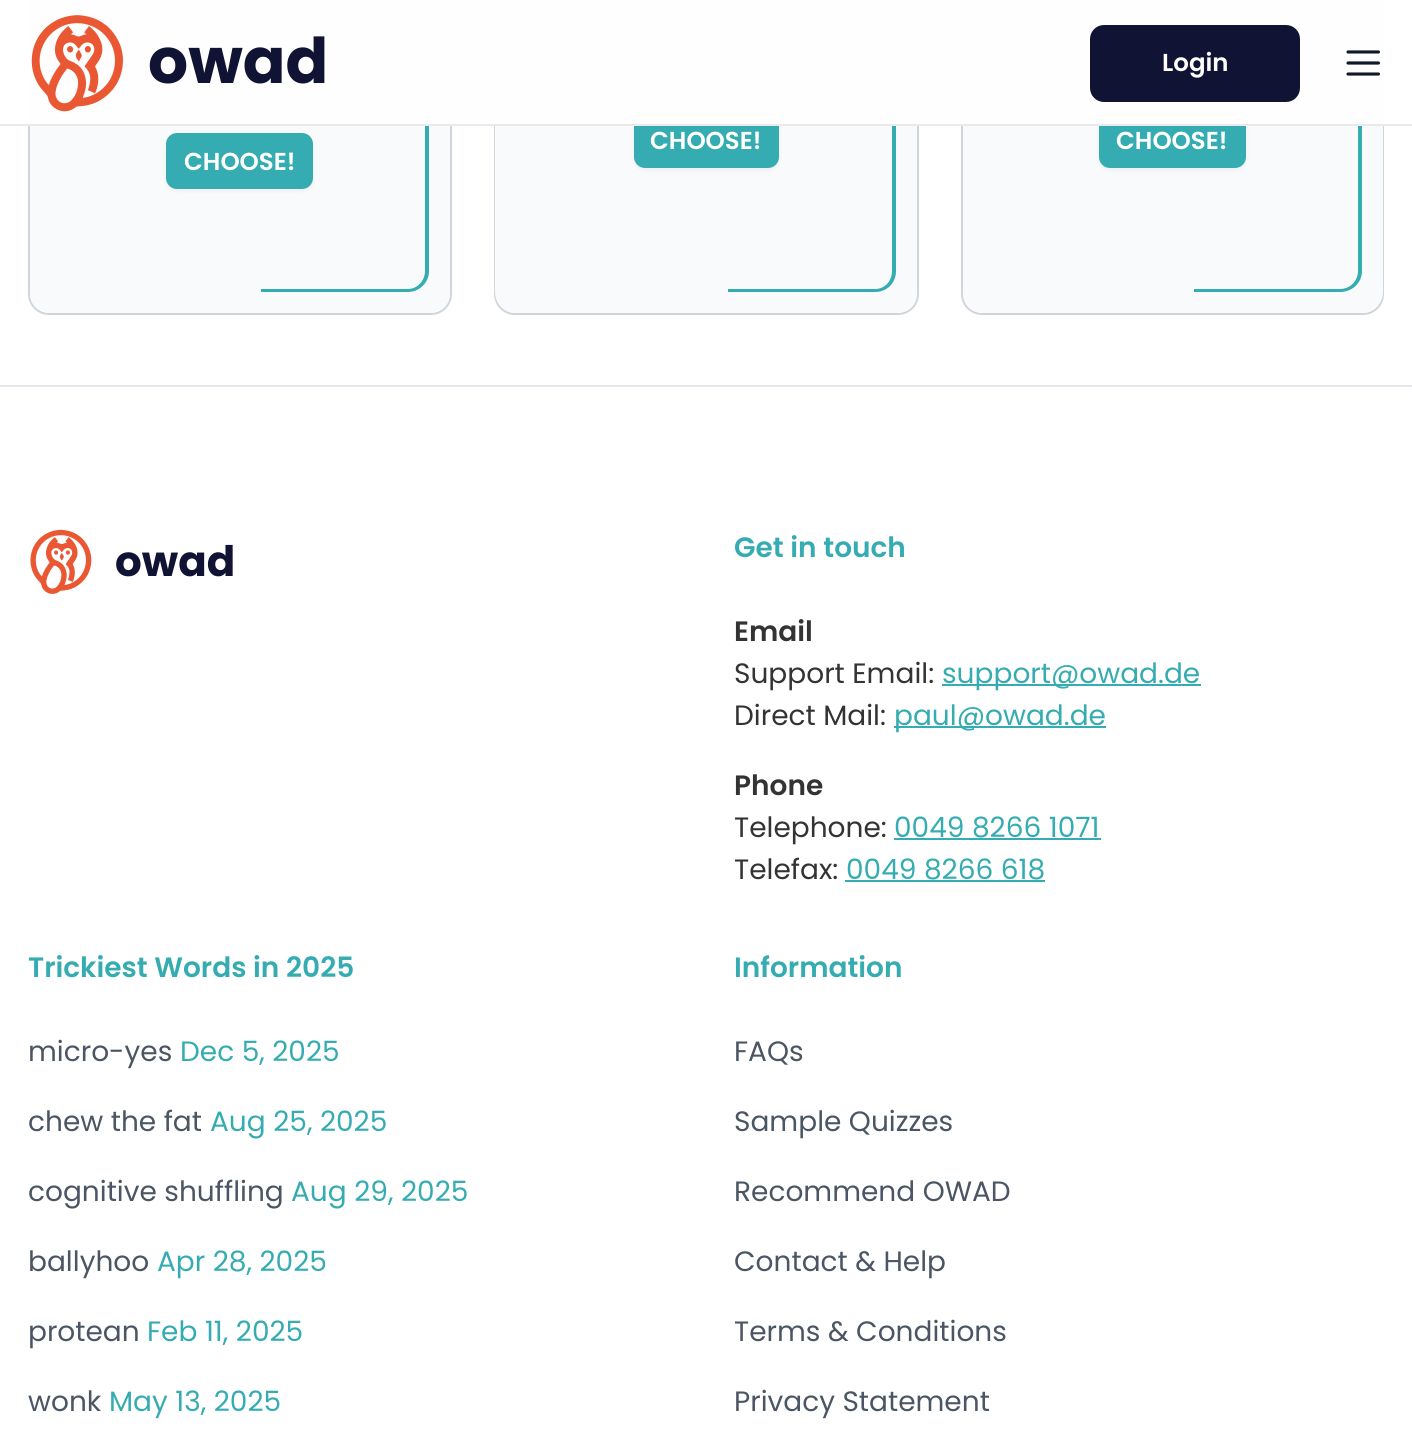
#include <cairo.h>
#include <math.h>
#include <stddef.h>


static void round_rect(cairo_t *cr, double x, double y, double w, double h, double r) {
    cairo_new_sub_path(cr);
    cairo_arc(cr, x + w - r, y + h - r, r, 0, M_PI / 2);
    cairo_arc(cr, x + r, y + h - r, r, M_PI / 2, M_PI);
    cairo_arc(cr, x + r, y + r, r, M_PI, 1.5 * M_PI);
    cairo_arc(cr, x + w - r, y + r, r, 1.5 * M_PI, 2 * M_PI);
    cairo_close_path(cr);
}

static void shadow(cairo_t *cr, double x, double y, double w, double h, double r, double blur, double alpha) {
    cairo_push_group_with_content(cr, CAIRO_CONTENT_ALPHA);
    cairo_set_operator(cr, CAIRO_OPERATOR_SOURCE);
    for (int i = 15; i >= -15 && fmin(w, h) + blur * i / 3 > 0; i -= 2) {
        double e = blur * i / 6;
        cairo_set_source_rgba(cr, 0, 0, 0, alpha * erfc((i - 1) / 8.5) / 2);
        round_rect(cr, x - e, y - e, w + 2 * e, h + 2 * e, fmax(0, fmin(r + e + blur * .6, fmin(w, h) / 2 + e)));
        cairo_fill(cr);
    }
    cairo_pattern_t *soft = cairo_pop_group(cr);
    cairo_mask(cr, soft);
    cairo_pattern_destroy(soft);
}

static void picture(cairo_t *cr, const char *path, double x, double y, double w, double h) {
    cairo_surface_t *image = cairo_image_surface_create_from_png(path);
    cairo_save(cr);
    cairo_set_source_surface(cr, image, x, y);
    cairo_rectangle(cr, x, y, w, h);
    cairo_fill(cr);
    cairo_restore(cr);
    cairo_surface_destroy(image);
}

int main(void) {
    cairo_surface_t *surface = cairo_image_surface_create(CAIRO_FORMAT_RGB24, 1412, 1441);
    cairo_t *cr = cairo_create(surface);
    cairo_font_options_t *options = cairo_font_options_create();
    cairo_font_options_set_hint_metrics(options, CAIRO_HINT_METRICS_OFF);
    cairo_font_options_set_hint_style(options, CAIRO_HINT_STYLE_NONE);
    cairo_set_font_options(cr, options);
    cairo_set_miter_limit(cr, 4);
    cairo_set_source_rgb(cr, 1, 1, 1);
    cairo_paint(cr);
    round_rect(cr, 495, -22, 423, 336, 20);
    cairo_set_source_rgb(cr, 0.82, 0.835, 0.859);
    cairo_stroke(cr);
    cairo_set_source_rgb(cr, 0.976, 0.98, 0.984);
    round_rect(cr, 495, -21, 422, 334, 21);
    cairo_fill(cr);
    cairo_set_source_rgb(cr, 0, 0, 0);
    shadow(cr, 634, 114, 145, 56, 11, 2, 0.05);
    cairo_set_source_rgb(cr, 0.208, 0.675, 0.694);
    round_rect(cr, 634, 112, 145, 56, 11);
    cairo_fill(cr);
    round_rect(cr, 962, -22, 421, 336, 20);
    cairo_set_source_rgb(cr, 0.82, 0.835, 0.859);
    cairo_stroke(cr);
    cairo_set_source_rgb(cr, 0.976, 0.98, 0.984);
    round_rect(cr, 963, -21, 420, 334, 21);
    cairo_fill(cr);
    cairo_set_source_rgb(cr, 0, 0, 0);
    shadow(cr, 1099, 114, 147, 56, 11, 2, 0.05);
    cairo_set_source_rgb(cr, 0.208, 0.675, 0.694);
    round_rect(cr, 1099, 112, 147, 56, 11);
    cairo_fill(cr);
    round_rect(cr, 29, -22, 422, 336, 20);
    cairo_set_source_rgb(cr, 0.82, 0.835, 0.859);
    cairo_stroke(cr);
    cairo_set_source_rgb(cr, 0.976, 0.98, 0.984);
    round_rect(cr, 30, -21, 420, 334, 21);
    cairo_fill(cr);
    cairo_set_source_rgb(cr, 0.996, 0.996, 0.996);
    cairo_rectangle(cr, 28, 0, 1356, 124);
    cairo_fill(cr);
    cairo_select_font_face(cr, "Poppins SemiBold", CAIRO_FONT_SLANT_NORMAL, CAIRO_FONT_WEIGHT_NORMAL);
    cairo_set_font_size(cr, 24.5);
    cairo_set_source_rgb(cr, 1, 1, 1);
    cairo_move_to(cr, 650, 149);
    cairo_show_text(cr, "CHOOSE!");
    cairo_set_source_rgb(cr, 0.208, 0.675, 0.694);
    cairo_set_fill_rule(cr, CAIRO_FILL_RULE_EVEN_ODD);
    cairo_new_path(cr);
    cairo_move_to(cr, 728, 124);
    cairo_line_to(cr, 896, 124);
    cairo_line_to(cr, 896, 271);
    cairo_curve_to(cr, 896, 283, 887, 292, 875, 292);
    cairo_line_to(cr, 728, 292);
    cairo_close_path(cr);
    cairo_move_to(cr, 728, 124);
    cairo_line_to(cr, 892, 124);
    cairo_line_to(cr, 892, 271);
    cairo_curve_to(cr, 892, 281, 885, 289, 875, 289);
    cairo_line_to(cr, 728, 289);
    cairo_close_path(cr);
    cairo_fill(cr);
    cairo_set_source_rgb(cr, 1, 1, 1);
    cairo_move_to(cr, 1116, 149);
    cairo_show_text(cr, "CHOOSE!");
    cairo_set_source_rgb(cr, 0.208, 0.675, 0.694);
    cairo_new_path(cr);
    cairo_move_to(cr, 1194, 124);
    cairo_line_to(cr, 1362, 124);
    cairo_line_to(cr, 1362, 271);
    cairo_curve_to(cr, 1362, 283, 1352, 292, 1340, 292);
    cairo_line_to(cr, 1194, 292);
    cairo_close_path(cr);
    cairo_move_to(cr, 1194, 124);
    cairo_line_to(cr, 1358, 124);
    cairo_line_to(cr, 1358, 271);
    cairo_curve_to(cr, 1358, 281, 1350, 289, 1340, 289);
    cairo_line_to(cr, 1194, 289);
    cairo_close_path(cr);
    cairo_fill(cr);
    cairo_set_source_rgb(cr, 0, 0, 0);
    shadow(cr, 166, 135, 147, 56, 11, 2, 0.05);
    cairo_set_source_rgb(cr, 0.208, 0.675, 0.694);
    round_rect(cr, 166, 133, 147, 56, 11);
    cairo_fill(cr);
    cairo_set_source_rgb(cr, 1, 1, 1);
    cairo_move_to(cr, 184, 170);
    cairo_show_text(cr, "CHOOSE!");
    cairo_set_source_rgb(cr, 0.208, 0.675, 0.694);
    cairo_new_path(cr);
    cairo_move_to(cr, 261, 124);
    cairo_line_to(cr, 429, 124);
    cairo_line_to(cr, 429, 271);
    cairo_curve_to(cr, 429, 283, 419, 292, 408, 292);
    cairo_line_to(cr, 261, 292);
    cairo_close_path(cr);
    cairo_move_to(cr, 261, 124);
    cairo_line_to(cr, 425, 124);
    cairo_line_to(cr, 425, 271);
    cairo_curve_to(cr, 425, 281, 417, 289, 408, 289);
    cairo_line_to(cr, 261, 289);
    cairo_close_path(cr);
    cairo_fill(cr);
    cairo_set_source_rgb(cr, 0.918, 0.914, 0.918);
    cairo_rectangle(cr, 0, 124, 1412, 2);
    cairo_fill(cr);
    picture(cr, "img1.png", 31, 15, 92, 97);
    cairo_select_font_face(cr, "Poppins", CAIRO_FONT_SLANT_NORMAL, CAIRO_FONT_WEIGHT_BOLD);
    cairo_set_font_size(cr, 63);
    cairo_set_source_rgb(cr, 0.067, 0.075, 0.204);
    cairo_move_to(cr, 148, 83);
    cairo_show_text(cr, "owad");
    round_rect(cr, 1090, 25, 210, 77, 14);
    cairo_fill(cr);
    cairo_select_font_face(cr, "Poppins SemiBold", CAIRO_FONT_SLANT_NORMAL, CAIRO_FONT_WEIGHT_NORMAL);
    cairo_set_font_size(cr, 24.5);
    cairo_set_source_rgb(cr, 1, 1, 1);
    cairo_move_to(cr, 1162, 71);
    cairo_show_text(cr, "Login");
    picture(cr, "img2.png", 1346, 50, 34, 26);
    cairo_set_source_rgb(cr, 0.898, 0.906, 0.922);
    cairo_rectangle(cr, 0, 385, 1412, 2);
    cairo_fill(cr);
    picture(cr, "img3.png", 30, 529, 62, 65);
    cairo_select_font_face(cr, "Poppins", CAIRO_FONT_SLANT_NORMAL, CAIRO_FONT_WEIGHT_BOLD);
    cairo_set_font_size(cr, 42);
    cairo_set_source_rgb(cr, 0.067, 0.075, 0.204);
    cairo_move_to(cr, 115, 576);
    cairo_show_text(cr, "owad");
    cairo_select_font_face(cr, "Poppins SemiBold", CAIRO_FONT_SLANT_NORMAL, CAIRO_FONT_WEIGHT_NORMAL);
    cairo_set_font_size(cr, 28);
    cairo_set_source_rgb(cr, 0.208, 0.675, 0.694);
    cairo_move_to(cr, 734, 557);
    cairo_show_text(cr, "Get in touch");
    cairo_set_source_rgb(cr, 0.2, 0.2, 0.2);
    cairo_move_to(cr, 734, 641);
    cairo_show_text(cr, "Email");
    cairo_select_font_face(cr, "Poppins", CAIRO_FONT_SLANT_NORMAL, CAIRO_FONT_WEIGHT_NORMAL);
    cairo_move_to(cr, 734, 683);
    cairo_show_text(cr, "Support Email:");
    cairo_set_source_rgb(cr, 0.208, 0.675, 0.694);
    cairo_rectangle(cr, 942, 684, 259, 2);
    cairo_fill(cr);
    cairo_move_to(cr, 942, 683);
    cairo_show_text(cr, "support@owad.de");
    cairo_set_source_rgb(cr, 0.2, 0.2, 0.2);
    cairo_move_to(cr, 734, 725);
    cairo_show_text(cr, "Direct Mail:");
    cairo_set_source_rgb(cr, 0.208, 0.675, 0.694);
    cairo_rectangle(cr, 894, 726, 212, 2);
    cairo_fill(cr);
    cairo_move_to(cr, 894, 725);
    cairo_show_text(cr, "paul@owad.de");
    cairo_select_font_face(cr, "Poppins SemiBold", CAIRO_FONT_SLANT_NORMAL, CAIRO_FONT_WEIGHT_NORMAL);
    cairo_set_source_rgb(cr, 0.2, 0.2, 0.2);
    cairo_move_to(cr, 734, 795);
    cairo_show_text(cr, "Phone");
    cairo_select_font_face(cr, "Poppins", CAIRO_FONT_SLANT_NORMAL, CAIRO_FONT_WEIGHT_NORMAL);
    cairo_move_to(cr, 734, 837);
    cairo_show_text(cr, "Telephone:");
    cairo_set_source_rgb(cr, 0.208, 0.675, 0.694);
    cairo_move_to(cr, 894, 837);
    cairo_show_text(cr, "0049 8266 1071");
    cairo_rectangle(cr, 894, 838, 207, 2);
    cairo_fill(cr);
    cairo_set_source_rgb(cr, 0.2, 0.2, 0.2);
    cairo_move_to(cr, 734, 879);
    cairo_show_text(cr, "Telefax:");
    cairo_set_source_rgb(cr, 0.208, 0.675, 0.694);
    cairo_move_to(cr, 846, 879);
    cairo_show_text(cr, "0049 8266 618");
    cairo_rectangle(cr, 845, 880, 200, 2);
    cairo_fill(cr);
    cairo_select_font_face(cr, "Poppins SemiBold", CAIRO_FONT_SLANT_NORMAL, CAIRO_FONT_WEIGHT_NORMAL);
    cairo_move_to(cr, 28, 977);
    cairo_show_text(cr, "Trickiest Words in 2025");
    cairo_select_font_face(cr, "Poppins", CAIRO_FONT_SLANT_NORMAL, CAIRO_FONT_WEIGHT_NORMAL);
    cairo_set_source_rgb(cr, 0.294, 0.333, 0.388);
    cairo_move_to(cr, 28, 1061);
    cairo_show_text(cr, "micro-yes");
    cairo_set_source_rgb(cr, 0.208, 0.675, 0.694);
    cairo_move_to(cr, 180, 1061);
    cairo_show_text(cr, "Dec 5, 2025");
    cairo_set_source_rgb(cr, 0.294, 0.333, 0.388);
    cairo_move_to(cr, 28, 1131);
    cairo_show_text(cr, "chew the fat");
    cairo_set_source_rgb(cr, 0.208, 0.675, 0.694);
    cairo_move_to(cr, 210, 1131);
    cairo_show_text(cr, "Aug 25, 2025");
    cairo_set_source_rgb(cr, 0.294, 0.333, 0.388);
    cairo_move_to(cr, 28, 1201);
    cairo_show_text(cr, "cognitive shuffling");
    cairo_set_source_rgb(cr, 0.208, 0.675, 0.694);
    cairo_move_to(cr, 291, 1201);
    cairo_show_text(cr, "Aug 29, 2025");
    cairo_set_source_rgb(cr, 0.294, 0.333, 0.388);
    cairo_move_to(cr, 28, 1271);
    cairo_show_text(cr, "ballyhoo");
    cairo_set_source_rgb(cr, 0.208, 0.675, 0.694);
    cairo_move_to(cr, 157, 1271);
    cairo_show_text(cr, "Apr 28, 2025");
    cairo_set_source_rgb(cr, 0.294, 0.333, 0.388);
    cairo_move_to(cr, 28, 1341);
    cairo_show_text(cr, "protean");
    cairo_set_source_rgb(cr, 0.208, 0.675, 0.694);
    cairo_move_to(cr, 147, 1341);
    cairo_show_text(cr, "Feb 11, 2025");
    cairo_set_source_rgb(cr, 0.294, 0.333, 0.388);
    cairo_move_to(cr, 28, 1411);
    cairo_show_text(cr, "wonk");
    cairo_set_source_rgb(cr, 0.208, 0.675, 0.694);
    cairo_move_to(cr, 109, 1411);
    cairo_show_text(cr, "May 13, 2025");
    cairo_select_font_face(cr, "Poppins SemiBold", CAIRO_FONT_SLANT_NORMAL, CAIRO_FONT_WEIGHT_NORMAL);
    cairo_move_to(cr, 734, 977);
    cairo_show_text(cr, "Information");
    cairo_select_font_face(cr, "Poppins", CAIRO_FONT_SLANT_NORMAL, CAIRO_FONT_WEIGHT_NORMAL);
    cairo_set_source_rgb(cr, 0.294, 0.333, 0.388);
    cairo_move_to(cr, 734, 1061);
    cairo_show_text(cr, "FAQs");
    cairo_move_to(cr, 734, 1131);
    cairo_show_text(cr, "Sample Quizzes");
    cairo_move_to(cr, 734, 1201);
    cairo_show_text(cr, "Recommend OWAD");
    cairo_move_to(cr, 734, 1271);
    cairo_show_text(cr, "Contact & Help");
    cairo_move_to(cr, 734, 1341);
    cairo_show_text(cr, "Terms & Conditions");
    cairo_move_to(cr, 734, 1411);
    cairo_show_text(cr, "Privacy Statement");
    cairo_surface_write_to_png(surface, "page.png");
    cairo_font_options_destroy(options);
    cairo_destroy(cr);
    cairo_surface_destroy(surface);
    return 0;
}
